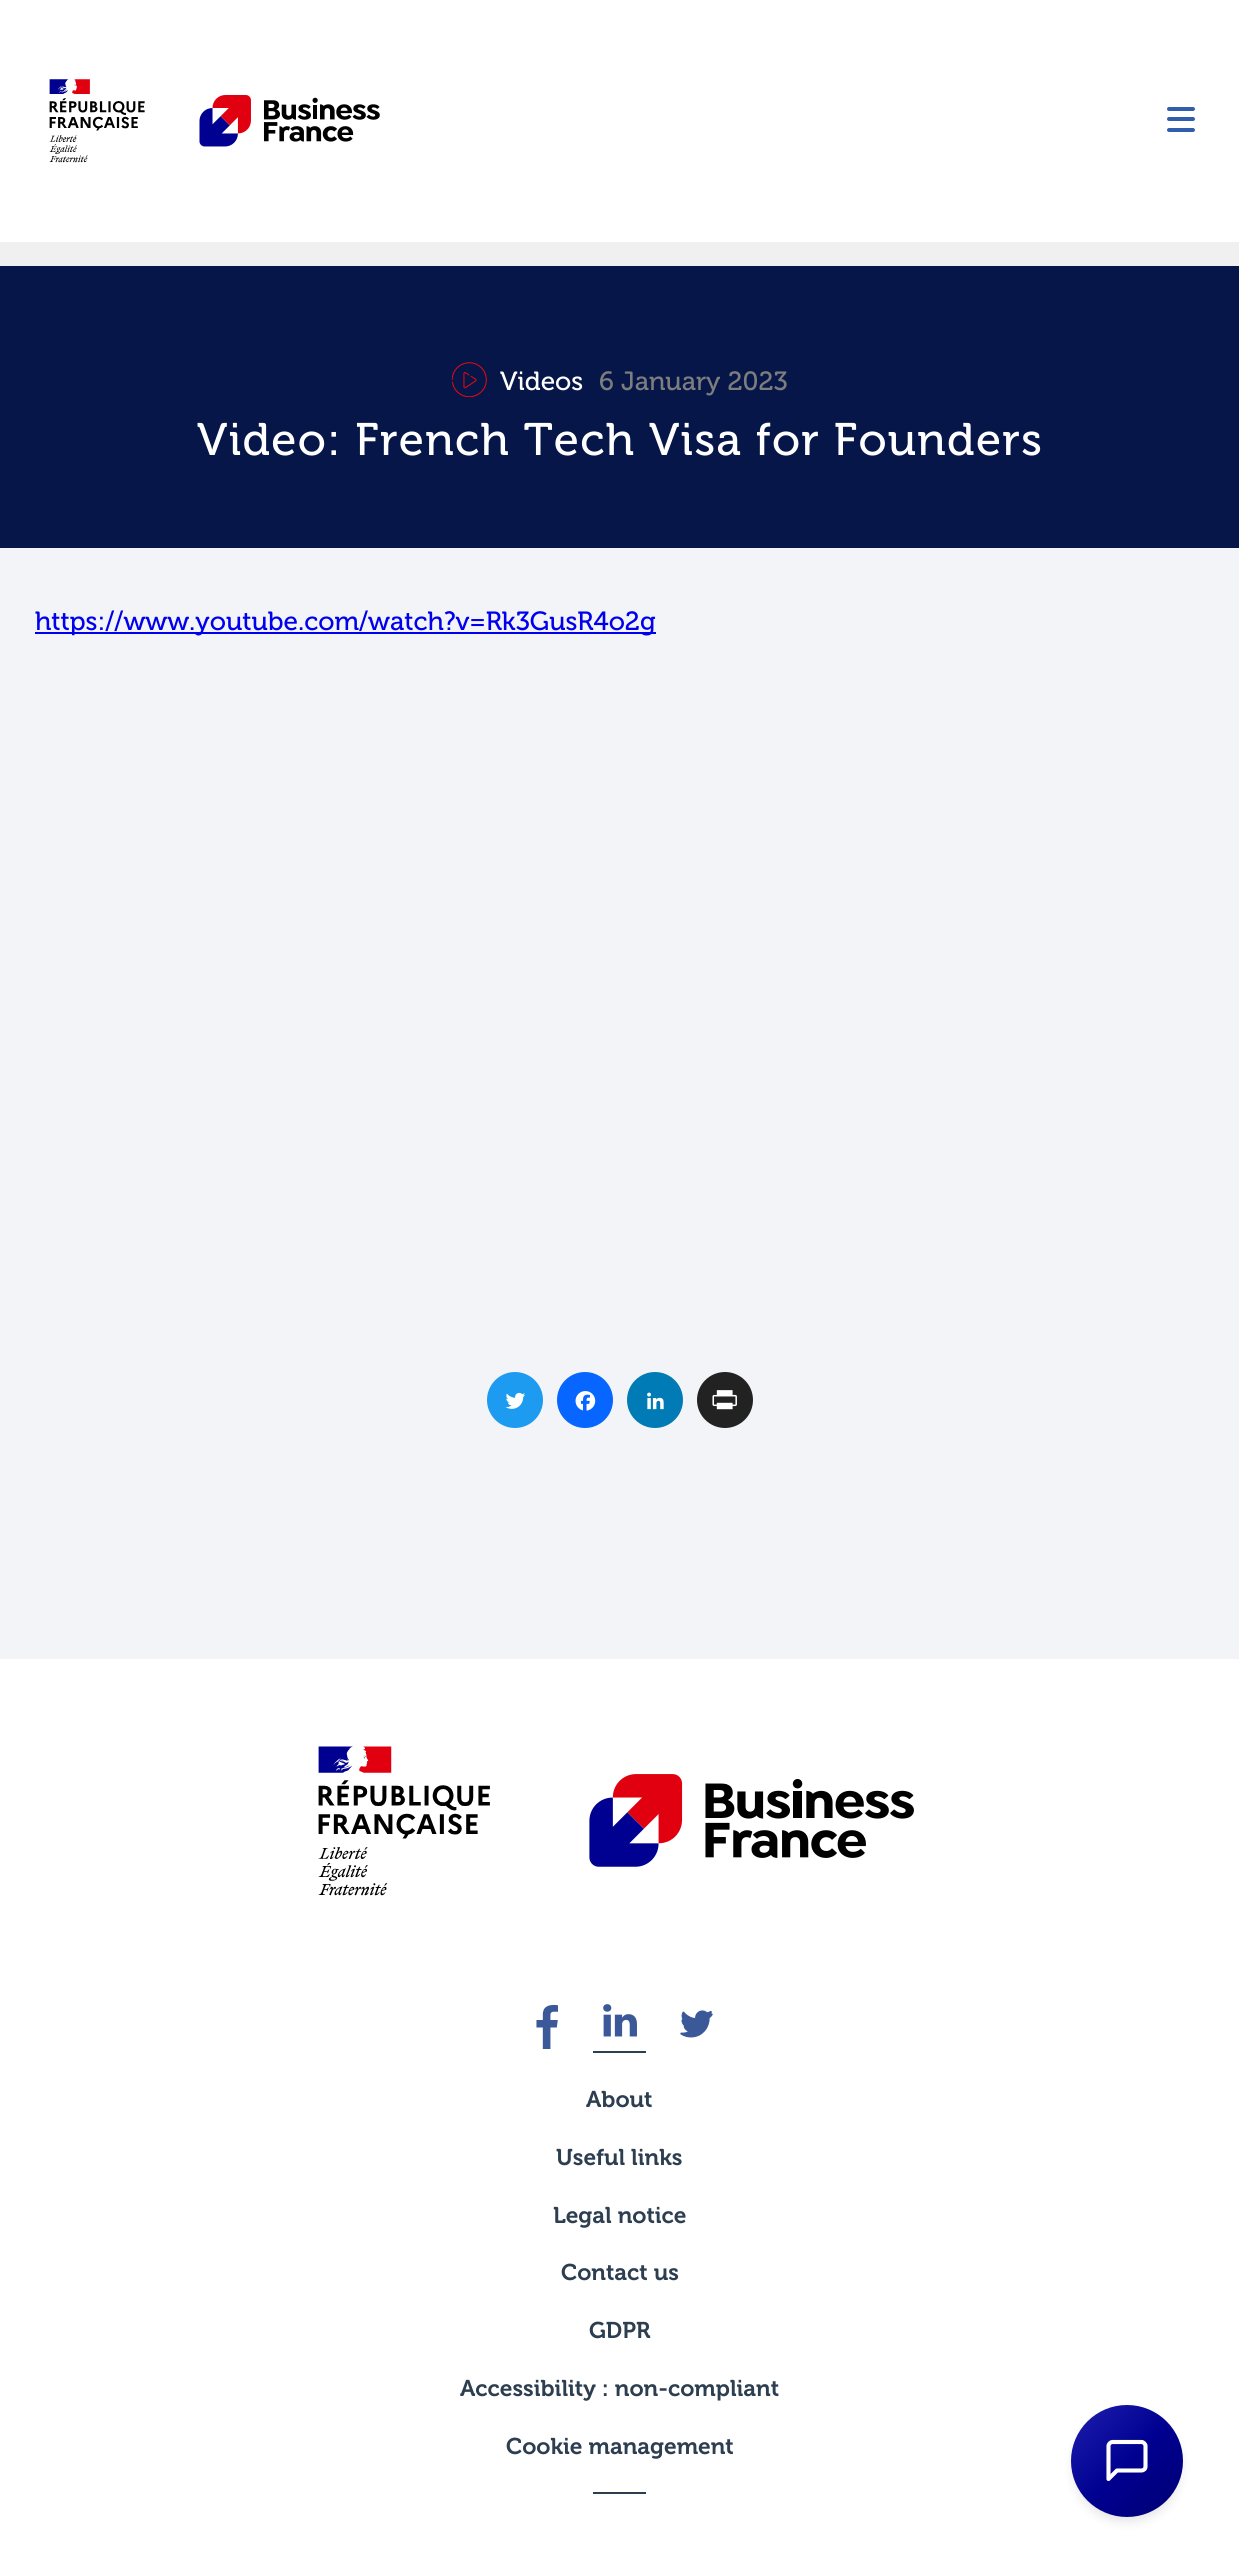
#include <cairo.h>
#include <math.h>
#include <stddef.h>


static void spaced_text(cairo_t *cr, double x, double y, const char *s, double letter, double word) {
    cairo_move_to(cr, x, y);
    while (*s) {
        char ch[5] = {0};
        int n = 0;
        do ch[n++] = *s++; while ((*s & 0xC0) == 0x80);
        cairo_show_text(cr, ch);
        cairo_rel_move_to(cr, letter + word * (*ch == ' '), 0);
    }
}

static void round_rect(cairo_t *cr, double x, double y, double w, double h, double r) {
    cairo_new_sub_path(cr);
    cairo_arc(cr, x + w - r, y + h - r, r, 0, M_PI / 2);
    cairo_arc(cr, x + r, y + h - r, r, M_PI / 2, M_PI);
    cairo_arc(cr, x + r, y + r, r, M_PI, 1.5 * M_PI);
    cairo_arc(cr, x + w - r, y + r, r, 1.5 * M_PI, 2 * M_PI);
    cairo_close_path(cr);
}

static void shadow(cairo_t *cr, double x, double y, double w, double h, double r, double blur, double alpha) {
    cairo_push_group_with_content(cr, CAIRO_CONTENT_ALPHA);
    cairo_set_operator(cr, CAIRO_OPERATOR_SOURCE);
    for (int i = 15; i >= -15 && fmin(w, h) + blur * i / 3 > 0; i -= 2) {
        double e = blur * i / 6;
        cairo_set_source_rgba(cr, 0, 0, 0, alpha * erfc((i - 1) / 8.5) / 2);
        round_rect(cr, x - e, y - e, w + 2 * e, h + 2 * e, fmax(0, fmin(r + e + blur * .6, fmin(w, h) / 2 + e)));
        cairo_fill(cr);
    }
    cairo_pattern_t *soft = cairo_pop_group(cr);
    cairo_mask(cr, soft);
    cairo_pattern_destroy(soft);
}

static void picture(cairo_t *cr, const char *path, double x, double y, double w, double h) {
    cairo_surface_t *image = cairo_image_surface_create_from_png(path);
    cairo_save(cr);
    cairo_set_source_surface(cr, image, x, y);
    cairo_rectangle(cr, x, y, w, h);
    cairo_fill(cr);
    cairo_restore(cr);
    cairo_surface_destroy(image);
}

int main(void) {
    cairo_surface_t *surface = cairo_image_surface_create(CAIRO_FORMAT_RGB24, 1239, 2571);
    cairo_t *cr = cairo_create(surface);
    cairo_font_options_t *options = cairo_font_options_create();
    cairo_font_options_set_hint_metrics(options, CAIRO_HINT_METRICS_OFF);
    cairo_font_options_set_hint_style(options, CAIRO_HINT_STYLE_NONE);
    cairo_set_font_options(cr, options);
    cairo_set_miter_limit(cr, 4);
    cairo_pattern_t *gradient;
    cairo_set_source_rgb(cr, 0.953, 0.957, 0.965);
    cairo_paint(cr);
    cairo_set_source_rgb(cr, 1, 1, 1);
    cairo_rectangle(cr, 0, 0, 1239, 242);
    cairo_fill(cr);
    picture(cr, "img1.png", 49, 79, 96, 84);
    picture(cr, "img2.png", 199, 95, 181, 52);
    cairo_set_source_rgb(cr, 0.188, 0.369, 0.678);
    round_rect(cr, 1167, 107, 28, 4, 2);
    cairo_fill(cr);
    round_rect(cr, 1167, 117, 28, 4, 2);
    cairo_fill(cr);
    round_rect(cr, 1167, 128, 28, 4, 2);
    cairo_fill(cr);
    cairo_set_source_rgb(cr, 0.941, 0.941, 0.941);
    cairo_rectangle(cr, 0, 242, 1239, 24);
    cairo_fill(cr);
    cairo_set_source_rgb(cr, 0.027, 0.086, 0.286);
    cairo_rectangle(cr, 0, 266, 1239, 282);
    cairo_fill(cr);
    picture(cr, "img3.png", 452, 362, 35, 35);
    cairo_select_font_face(cr, "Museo", CAIRO_FONT_SLANT_NORMAL, CAIRO_FONT_WEIGHT_NORMAL);
    cairo_set_font_size(cr, 26.25);
    cairo_set_source_rgb(cr, 1, 1, 1);
    cairo_move_to(cr, 500, 390);
    cairo_show_text(cr, "Videos");
    cairo_set_source_rgb(cr, 0.49, 0.49, 0.49);
    cairo_move_to(cr, 599, 390);
    cairo_show_text(cr, "6 January 2023");
    cairo_set_font_size(cr, 45.5);
    cairo_set_source_rgb(cr, 1, 1, 1);
    spaced_text(cr, 197, 455, "Video: French Tech Visa for Founders", 1.3, 0);
    cairo_set_source_rgb(cr, 0, 0, 0.933);
    cairo_rectangle(cr, 35, 632, 621, 2);
    cairo_fill(cr);
    cairo_set_font_size(cr, 26.25);
    cairo_move_to(cr, 35, 630);
    cairo_show_text(cr, "https://www.youtube.com/watch?v=Rk3GusR4o2g");
    cairo_set_source_rgb(cr, 0.114, 0.608, 0.941);
    cairo_new_path(cr);
    cairo_arc(cr, 515, 1400, 28, 0, 2 * M_PI);
    cairo_fill(cr);
    picture(cr, "img4.png", 505, 1392, 21, 17);
    cairo_set_source_rgb(cr, 0.031, 0.4, 1);
    cairo_arc(cr, 585, 1400, 28, 0, 2 * M_PI);
    cairo_fill(cr);
    picture(cr, "img5.png", 575, 1391, 21, 20);
    cairo_set_source_rgb(cr, 0, 0.482, 0.71);
    cairo_arc(cr, 655, 1400, 28, 0, 2 * M_PI);
    cairo_fill(cr);
    picture(cr, "img6.png", 647, 1392, 17, 18);
    cairo_set_source_rgb(cr, 0.133, 0.133, 0.133);
    cairo_arc(cr, 725, 1400, 28, 0, 2 * M_PI);
    cairo_fill(cr);
    picture(cr, "img7.png", 712, 1390, 25, 20);
    cairo_set_source_rgb(cr, 1, 1, 1);
    cairo_rectangle(cr, 0, 1659, 1239, 912);
    cairo_fill(cr);
    picture(cr, "img8.png", 318, 1746, 172, 150);
    picture(cr, "img9.png", 589, 1774, 325, 93);
    picture(cr, "img10.png", 536, 2005, 22, 44);
    picture(cr, "img11.png", 603, 2004, 34, 33);
    picture(cr, "img12.png", 680, 2010, 33, 28);
    cairo_set_source_rgb(cr, 0.173, 0.243, 0.314);
    cairo_rectangle(cr, 593, 2051, 53, 2);
    cairo_fill(cr);
    cairo_select_font_face(cr, "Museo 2", CAIRO_FONT_SLANT_NORMAL, CAIRO_FONT_WEIGHT_NORMAL);
    cairo_set_font_size(cr, 22.75);
    cairo_move_to(cr, 586, 2107);
    cairo_show_text(cr, "About");
    cairo_move_to(cr, 556, 2165);
    cairo_show_text(cr, "Useful links");
    cairo_move_to(cr, 553, 2223);
    cairo_show_text(cr, "Legal notice");
    cairo_move_to(cr, 561, 2280);
    cairo_show_text(cr, "Contact us");
    cairo_move_to(cr, 589, 2338);
    cairo_show_text(cr, "GDPR");
    cairo_move_to(cr, 460, 2396);
    cairo_show_text(cr, "Accessibility : non-compliant");
    cairo_move_to(cr, 506, 2454);
    cairo_show_text(cr, "Cookie management");
    cairo_rectangle(cr, 593, 2492, 53, 2);
    cairo_fill(cr);
    cairo_set_source_rgb(cr, 0, 0, 0);
    shadow(cr, 1073, 2413, 108, 109, 54, 5, 0.1);
    gradient = cairo_pattern_create_linear(1071, 2405, 1183, 2517);
    cairo_pattern_add_color_stop_rgba(gradient, 0, 0.118, 0.118, 0.686, 1);
    cairo_pattern_add_color_stop_rgba(gradient, 0.5, 0, 0, 0.569, 1);
    cairo_pattern_add_color_stop_rgba(gradient, 1, 0, 0, 0.451, 1);
    cairo_set_source(cr, gradient);
    cairo_pattern_destroy(gradient);
    cairo_arc(cr, 1127, 2461, 56, 0, 2 * M_PI);
    cairo_fill(cr);
    cairo_new_path(cr);
    cairo_move_to(cr, 1145.5, 2466.5);
    cairo_curve_to(cr, 1145.5, 2469, 1143.5, 2470.5, 1141.5, 2470.5);
    cairo_line_to(cr, 1117, 2470.5);
    cairo_line_to(cr, 1108.5, 2479);
    cairo_line_to(cr, 1108.5, 2446);
    cairo_curve_to(cr, 1108.5, 2444, 1110.5, 2442, 1112.5, 2442);
    cairo_line_to(cr, 1141.5, 2442);
    cairo_curve_to(cr, 1143.5, 2442, 1145.5, 2444, 1145.5, 2446);
    cairo_close_path(cr);
    cairo_set_source_rgb(cr, 1, 1, 1);
    cairo_set_line_width(cr, 4.1);
    cairo_set_line_cap(cr, CAIRO_LINE_CAP_ROUND);
    cairo_set_line_join(cr, CAIRO_LINE_JOIN_ROUND);
    cairo_stroke(cr);
    cairo_surface_write_to_png(surface, "page.png");
    cairo_font_options_destroy(options);
    cairo_destroy(cr);
    cairo_surface_destroy(surface);
    return 0;
}
